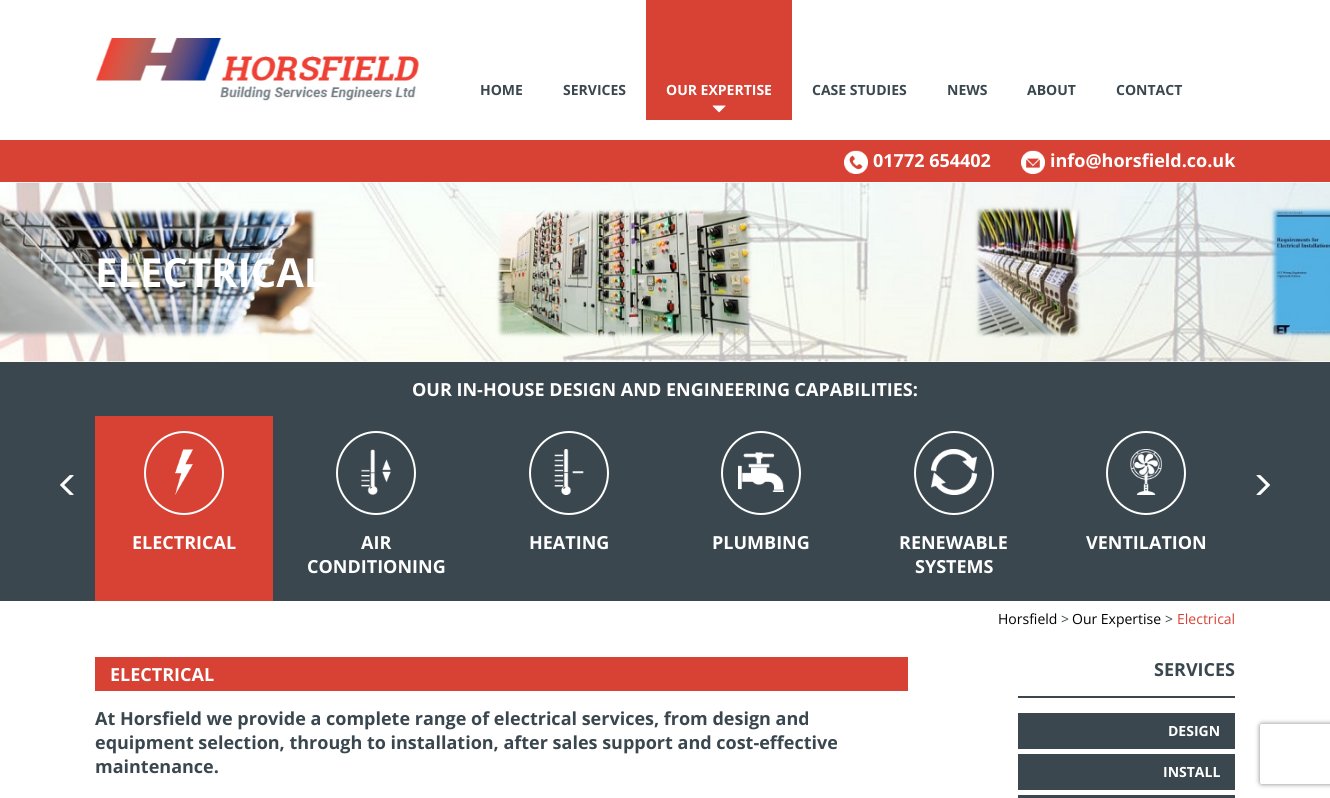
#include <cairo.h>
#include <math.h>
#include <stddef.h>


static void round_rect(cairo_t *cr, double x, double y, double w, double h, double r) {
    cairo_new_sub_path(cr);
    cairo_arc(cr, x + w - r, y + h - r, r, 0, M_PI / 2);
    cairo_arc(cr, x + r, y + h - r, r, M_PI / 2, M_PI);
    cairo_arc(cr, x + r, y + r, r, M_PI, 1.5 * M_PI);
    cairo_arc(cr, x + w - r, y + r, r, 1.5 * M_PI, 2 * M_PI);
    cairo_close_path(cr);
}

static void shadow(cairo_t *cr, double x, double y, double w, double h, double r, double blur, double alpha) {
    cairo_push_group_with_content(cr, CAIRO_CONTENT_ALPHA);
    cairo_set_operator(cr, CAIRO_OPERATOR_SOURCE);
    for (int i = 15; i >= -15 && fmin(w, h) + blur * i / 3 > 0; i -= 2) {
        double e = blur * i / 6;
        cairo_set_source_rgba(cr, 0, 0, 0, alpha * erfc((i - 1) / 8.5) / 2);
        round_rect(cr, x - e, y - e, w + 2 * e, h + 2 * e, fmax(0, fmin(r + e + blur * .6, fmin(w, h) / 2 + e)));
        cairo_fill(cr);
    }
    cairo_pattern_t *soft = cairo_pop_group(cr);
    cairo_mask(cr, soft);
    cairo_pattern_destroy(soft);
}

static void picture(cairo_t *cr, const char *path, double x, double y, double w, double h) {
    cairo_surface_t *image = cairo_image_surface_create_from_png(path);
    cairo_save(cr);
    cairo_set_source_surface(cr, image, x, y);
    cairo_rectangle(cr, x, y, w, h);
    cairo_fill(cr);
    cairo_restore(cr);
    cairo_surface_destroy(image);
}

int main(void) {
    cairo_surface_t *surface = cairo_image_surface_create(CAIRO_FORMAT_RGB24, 1330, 798);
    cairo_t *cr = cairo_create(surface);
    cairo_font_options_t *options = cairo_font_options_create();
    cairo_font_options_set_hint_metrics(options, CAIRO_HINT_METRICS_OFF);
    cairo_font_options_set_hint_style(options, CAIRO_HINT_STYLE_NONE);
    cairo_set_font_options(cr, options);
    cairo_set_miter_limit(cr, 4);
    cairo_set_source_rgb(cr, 1, 1, 1);
    cairo_paint(cr);
    picture(cr, "img1.png", 95, 38, 324, 63);
    cairo_select_font_face(cr, "Open Sans", CAIRO_FONT_SLANT_NORMAL, CAIRO_FONT_WEIGHT_BOLD);
    cairo_set_font_size(cr, 14);
    cairo_set_source_rgb(cr, 0.227, 0.278, 0.31);
    cairo_move_to(cr, 480, 95);
    cairo_show_text(cr, "HOME");
    cairo_move_to(cr, 563, 95);
    cairo_show_text(cr, "SERVICES");
    cairo_set_source_rgb(cr, 0.843, 0.259, 0.204);
    cairo_rectangle(cr, 646, 0, 146, 120);
    cairo_fill(cr);
    cairo_set_source_rgb(cr, 1, 1, 1);
    cairo_move_to(cr, 666, 95);
    cairo_show_text(cr, "OUR EXPERTISE");
    picture(cr, "img2.png", 712, 105, 14, 8);
    cairo_set_source_rgb(cr, 0.227, 0.278, 0.31);
    cairo_move_to(cr, 812, 95);
    cairo_show_text(cr, "CASE STUDIES");
    cairo_move_to(cr, 947, 95);
    cairo_show_text(cr, "NEWS");
    cairo_move_to(cr, 1027, 95);
    cairo_show_text(cr, "ABOUT");
    cairo_move_to(cr, 1116, 95);
    cairo_show_text(cr, "CONTACT");
    cairo_set_source_rgb(cr, 0.843, 0.259, 0.204);
    cairo_rectangle(cr, 0, 140, 1330, 42);
    cairo_fill(cr);
    picture(cr, "img3.png", 844, 150, 24, 24);
    cairo_set_font_size(cr, 18);
    cairo_set_source_rgb(cr, 1, 1, 1);
    cairo_move_to(cr, 873, 167);
    cairo_show_text(cr, "01772 654402");
    picture(cr, "img4.png", 1021, 150, 24, 24);
    cairo_move_to(cr, 1050, 167);
    cairo_show_text(cr, "info@horsfield.co.uk");
    picture(cr, "img5.png", 0, 182, 1330, 180);
    cairo_set_font_size(cr, 40);
    cairo_move_to(cr, 95, 287);
    cairo_show_text(cr, "ELECTRICAL");
    cairo_set_source_rgb(cr, 0.227, 0.278, 0.31);
    cairo_rectangle(cr, 0, 362, 1330, 239);
    cairo_fill(cr);
    cairo_set_font_size(cr, 18);
    cairo_set_source_rgb(cr, 1, 1, 1);
    cairo_move_to(cr, 412, 396);
    cairo_show_text(cr, "OUR IN-HOUSE DESIGN AND ENGINEERING CAPABILITIES:");
    picture(cr, "img6.png", 60, 475, 14, 20);
    picture(cr, "img7.png", 1256, 475, 14, 20);
    cairo_set_source_rgb(cr, 0.843, 0.259, 0.204);
    cairo_rectangle(cr, 95, 416, 178, 185);
    cairo_fill(cr);
    cairo_new_path(cr);
    cairo_move_to(cr, 184, 432);
    cairo_curve_to(cr, 205.5, 432, 223, 450.5, 223, 473);
    cairo_curve_to(cr, 223, 495.5, 205.5, 514, 184, 514);
    cairo_curve_to(cr, 162.5, 514, 145, 495.5, 145, 473);
    cairo_curve_to(cr, 145, 450.5, 162.5, 432, 184, 432);
    cairo_close_path(cr);
    cairo_set_source_rgb(cr, 1, 1, 1);
    cairo_stroke(cr);
    picture(cr, "img8.png", 175, 449, 18, 46);
    cairo_move_to(cr, 132, 549);
    cairo_show_text(cr, "ELECTRICAL");
    cairo_new_path(cr);
    cairo_move_to(cr, 376, 432);
    cairo_curve_to(cr, 397.5, 432, 415, 450.5, 415, 473);
    cairo_curve_to(cr, 415, 495.5, 397.5, 514, 376, 514);
    cairo_curve_to(cr, 354.5, 514, 337, 495.5, 337, 473);
    cairo_curve_to(cr, 337, 450.5, 354.5, 432, 376, 432);
    cairo_close_path(cr);
    cairo_stroke(cr);
    picture(cr, "img9.png", 361, 449, 30, 46);
    cairo_move_to(cr, 361, 549);
    cairo_show_text(cr, "AIR");
    cairo_move_to(cr, 307, 573);
    cairo_show_text(cr, "CONDITIONING");
    cairo_new_path(cr);
    cairo_move_to(cr, 569, 432);
    cairo_curve_to(cr, 590.5, 432, 608, 450.5, 608, 473);
    cairo_curve_to(cr, 608, 495.5, 590.5, 514, 569, 514);
    cairo_curve_to(cr, 547.5, 514, 530, 495.5, 530, 473);
    cairo_curve_to(cr, 530, 450.5, 547.5, 432, 569, 432);
    cairo_close_path(cr);
    cairo_stroke(cr);
    picture(cr, "img10.png", 554, 449, 30, 46);
    cairo_move_to(cr, 529, 549);
    cairo_show_text(cr, "HEATING");
    cairo_new_path(cr);
    cairo_move_to(cr, 761, 432);
    cairo_curve_to(cr, 782.5, 432, 800, 450.5, 800, 473);
    cairo_curve_to(cr, 800, 495.5, 782.5, 514, 761, 514);
    cairo_curve_to(cr, 739.5, 514, 722, 495.5, 722, 473);
    cairo_curve_to(cr, 722, 450.5, 739.5, 432, 761, 432);
    cairo_close_path(cr);
    cairo_stroke(cr);
    picture(cr, "img11.png", 738, 452, 46, 40);
    cairo_move_to(cr, 712, 549);
    cairo_show_text(cr, "PLUMBING");
    cairo_new_path(cr);
    cairo_move_to(cr, 954, 432);
    cairo_curve_to(cr, 975.5, 432, 993, 450.5, 993, 473);
    cairo_curve_to(cr, 993, 495.5, 975.5, 514, 954, 514);
    cairo_curve_to(cr, 932.5, 514, 915, 495.5, 915, 473);
    cairo_curve_to(cr, 915, 450.5, 932.5, 432, 954, 432);
    cairo_close_path(cr);
    cairo_stroke(cr);
    picture(cr, "img12.png", 931, 449, 46, 46);
    cairo_move_to(cr, 899, 549);
    cairo_show_text(cr, "RENEWABLE");
    cairo_move_to(cr, 915, 573);
    cairo_show_text(cr, "SYSTEMS");
    cairo_new_path(cr);
    cairo_move_to(cr, 1146, 432);
    cairo_curve_to(cr, 1167.5, 432, 1185, 450.5, 1185, 473);
    cairo_curve_to(cr, 1185, 495.5, 1167.5, 514, 1146, 514);
    cairo_curve_to(cr, 1124.5, 514, 1107, 495.5, 1107, 473);
    cairo_curve_to(cr, 1107, 450.5, 1124.5, 432, 1146, 432);
    cairo_close_path(cr);
    cairo_stroke(cr);
    picture(cr, "img13.png", 1130, 449, 32, 46);
    cairo_move_to(cr, 1086, 549);
    cairo_show_text(cr, "VENTILATION");
    cairo_select_font_face(cr, "Open Sans", CAIRO_FONT_SLANT_NORMAL, CAIRO_FONT_WEIGHT_NORMAL);
    cairo_set_font_size(cr, 14);
    cairo_set_source_rgb(cr, 0, 0, 0);
    cairo_move_to(cr, 998, 624);
    cairo_show_text(cr, "Horsfield");
    cairo_set_source_rgb(cr, 0.227, 0.278, 0.31);
    cairo_move_to(cr, 1061, 624);
    cairo_show_text(cr, ">");
    cairo_set_source_rgb(cr, 0, 0, 0);
    cairo_move_to(cr, 1072, 624);
    cairo_show_text(cr, "Our Expertise");
    cairo_set_source_rgb(cr, 0.227, 0.278, 0.31);
    cairo_move_to(cr, 1165, 624);
    cairo_show_text(cr, ">");
    cairo_set_source_rgb(cr, 0.843, 0.259, 0.204);
    cairo_move_to(cr, 1177, 624);
    cairo_show_text(cr, "Electrical");
    cairo_rectangle(cr, 95, 657, 813, 34);
    cairo_fill(cr);
    cairo_select_font_face(cr, "Open Sans", CAIRO_FONT_SLANT_NORMAL, CAIRO_FONT_WEIGHT_BOLD);
    cairo_set_font_size(cr, 18);
    cairo_set_source_rgb(cr, 1, 1, 1);
    cairo_move_to(cr, 110, 681);
    cairo_show_text(cr, "ELECTRICAL");
    cairo_set_source_rgb(cr, 0.227, 0.278, 0.31);
    cairo_move_to(cr, 95, 725);
    cairo_show_text(cr, "At Horsfield we provide a complete range of electrical services, from design and");
    cairo_move_to(cr, 95, 749);
    cairo_show_text(cr, "equipment selection, through to installation, after sales support and cost-effective");
    cairo_move_to(cr, 95, 773);
    cairo_show_text(cr, "maintenance.");
    cairo_rectangle(cr, 1018, 696, 217, 2);
    cairo_fill(cr);
    cairo_move_to(cr, 1154, 676);
    cairo_show_text(cr, "SERVICES");
    cairo_rectangle(cr, 1018, 713, 217, 36);
    cairo_fill(cr);
    cairo_set_font_size(cr, 14);
    cairo_set_source_rgb(cr, 1, 1, 1);
    cairo_move_to(cr, 1168, 736);
    cairo_show_text(cr, "DESIGN");
    cairo_set_source_rgb(cr, 0.227, 0.278, 0.31);
    cairo_rectangle(cr, 1018, 754, 217, 36);
    cairo_fill(cr);
    cairo_set_source_rgb(cr, 1, 1, 1);
    cairo_move_to(cr, 1163, 777);
    cairo_show_text(cr, "INSTALL");
    cairo_set_source_rgb(cr, 0.227, 0.278, 0.31);
    cairo_rectangle(cr, 1018, 795, 217, 3);
    cairo_fill(cr);
    cairo_save(cr);
    cairo_set_fill_rule(cr, CAIRO_FILL_RULE_EVEN_ODD);
    cairo_new_path(cr);
    cairo_move_to(cr, 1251, 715);
    cairo_line_to(cr, 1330, 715);
    cairo_line_to(cr, 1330, 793);
    cairo_line_to(cr, 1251, 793);
    cairo_close_path(cr);
    cairo_move_to(cr, 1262, 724);
    cairo_line_to(cr, 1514, 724);
    cairo_curve_to(cr, 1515, 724, 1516, 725, 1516, 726);
    cairo_line_to(cr, 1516, 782);
    cairo_curve_to(cr, 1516, 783, 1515, 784, 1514, 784);
    cairo_line_to(cr, 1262, 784);
    cairo_curve_to(cr, 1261, 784, 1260, 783, 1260, 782);
    cairo_line_to(cr, 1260, 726);
    cairo_curve_to(cr, 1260, 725, 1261, 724, 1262, 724);
    cairo_close_path(cr);
    cairo_clip(cr);
    cairo_set_source_rgb(cr, 0.502, 0.502, 0.502);
    shadow(cr, 1260, 724, 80, 60, 2, 2.5, 1);
    cairo_restore(cr);
    cairo_surface_write_to_png(surface, "page.png");
    cairo_font_options_destroy(options);
    cairo_destroy(cr);
    cairo_surface_destroy(surface);
    return 0;
}
